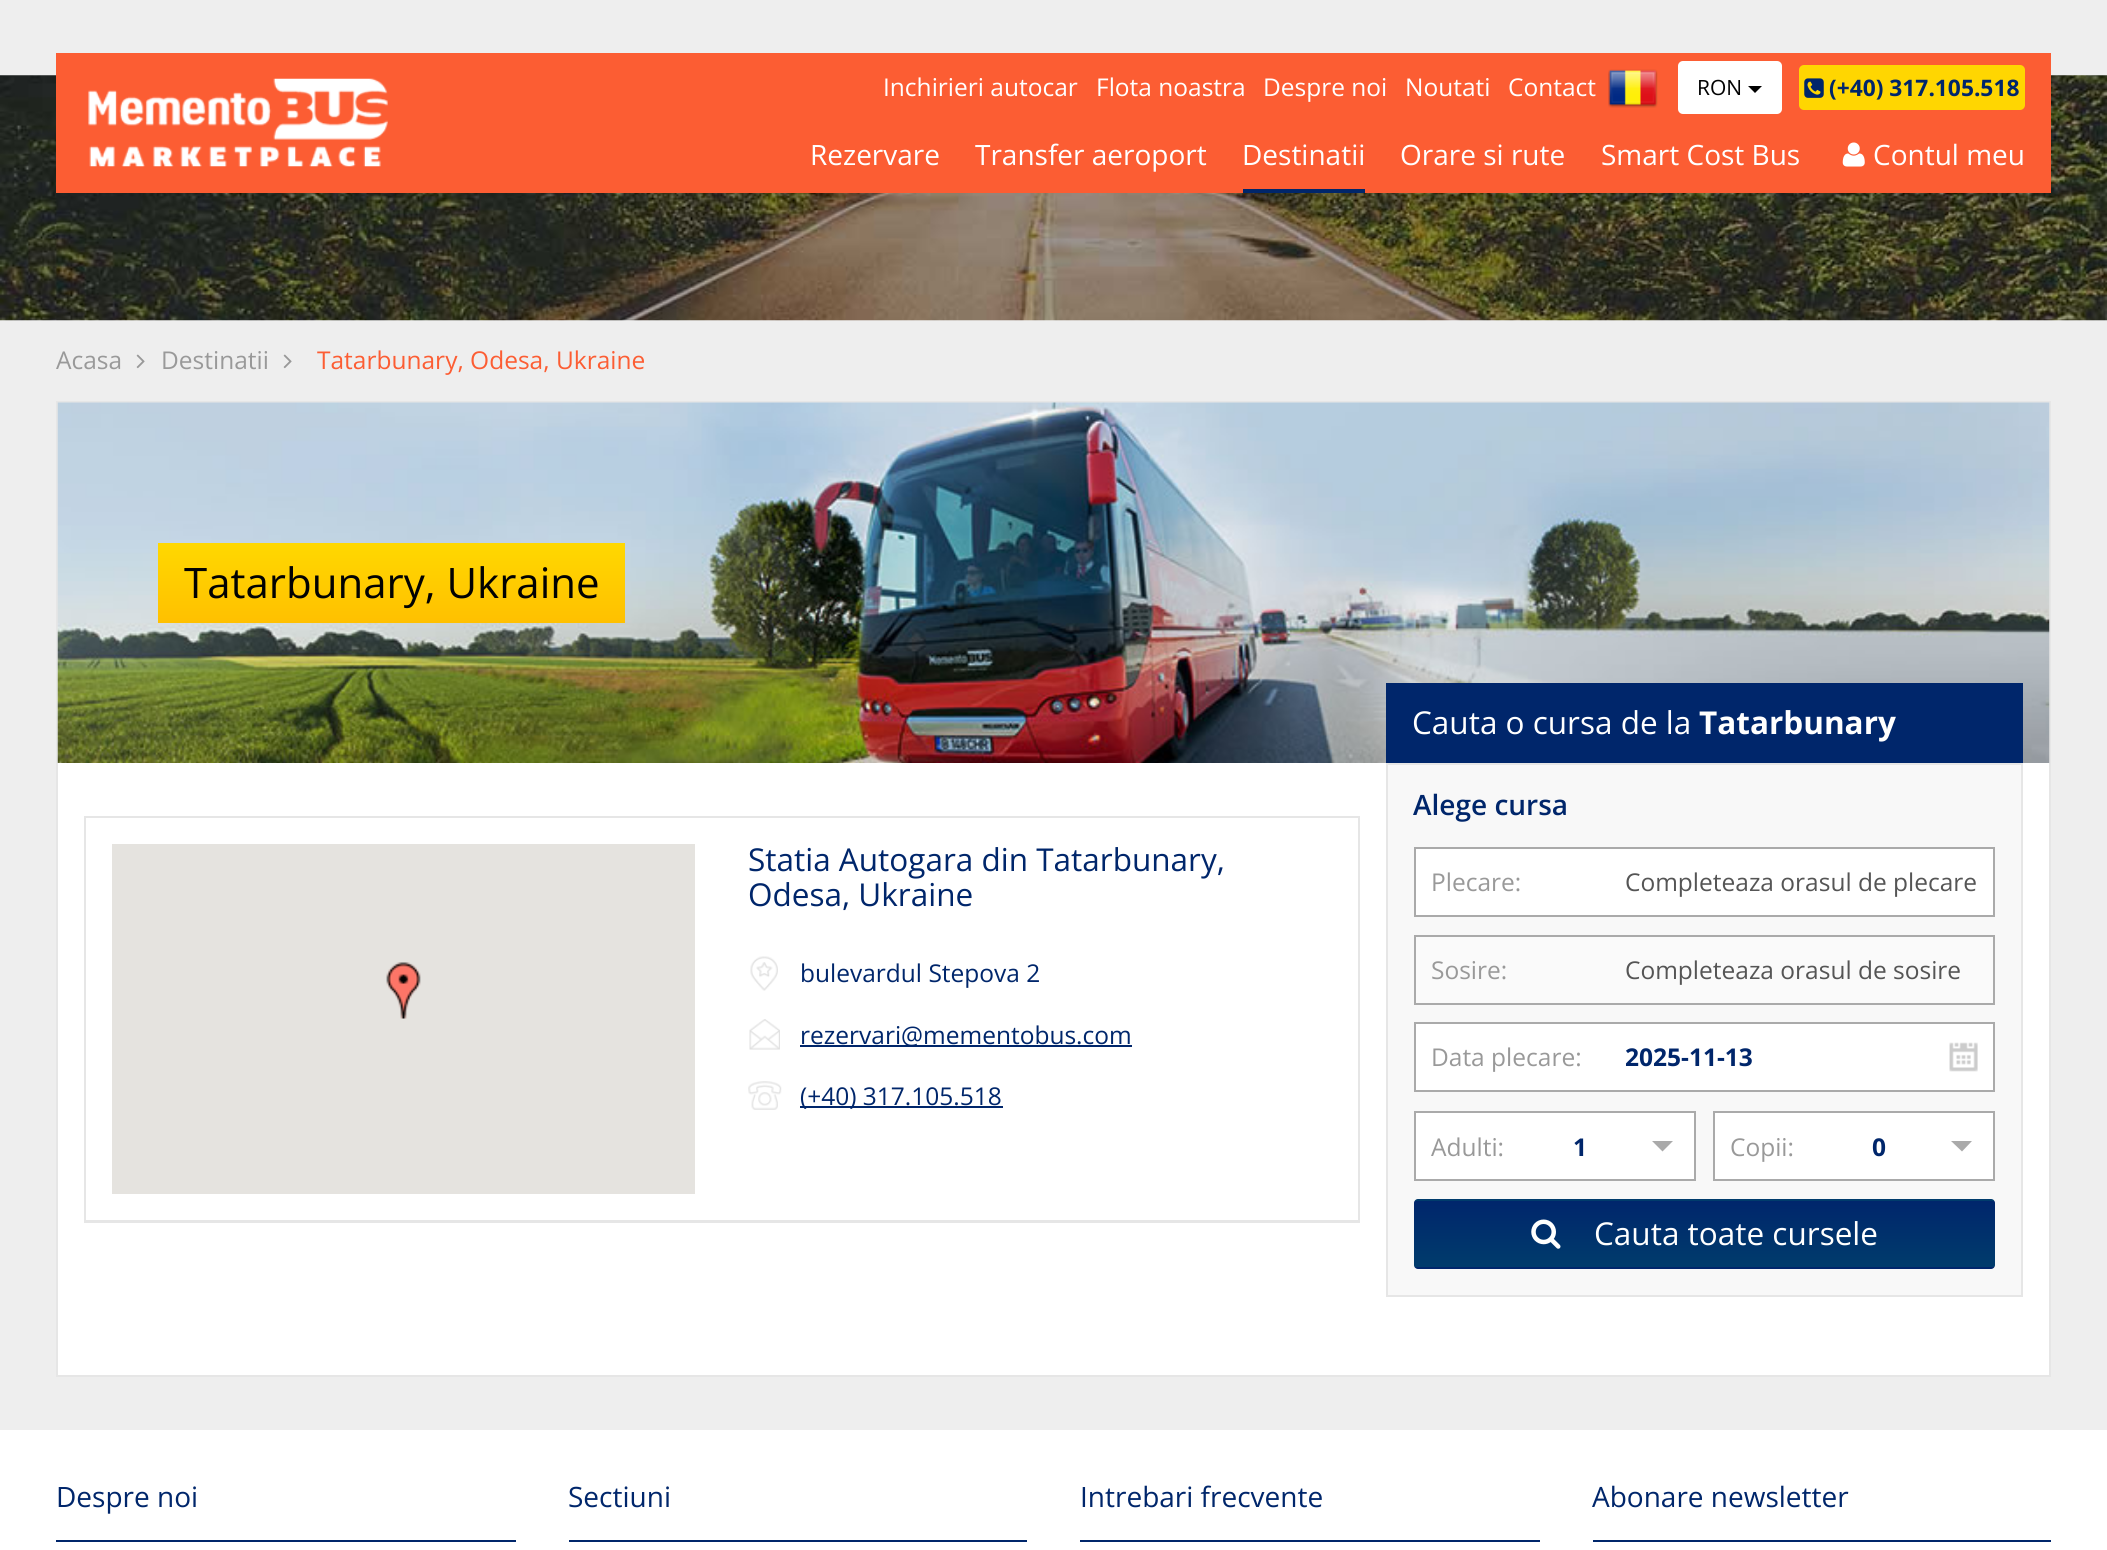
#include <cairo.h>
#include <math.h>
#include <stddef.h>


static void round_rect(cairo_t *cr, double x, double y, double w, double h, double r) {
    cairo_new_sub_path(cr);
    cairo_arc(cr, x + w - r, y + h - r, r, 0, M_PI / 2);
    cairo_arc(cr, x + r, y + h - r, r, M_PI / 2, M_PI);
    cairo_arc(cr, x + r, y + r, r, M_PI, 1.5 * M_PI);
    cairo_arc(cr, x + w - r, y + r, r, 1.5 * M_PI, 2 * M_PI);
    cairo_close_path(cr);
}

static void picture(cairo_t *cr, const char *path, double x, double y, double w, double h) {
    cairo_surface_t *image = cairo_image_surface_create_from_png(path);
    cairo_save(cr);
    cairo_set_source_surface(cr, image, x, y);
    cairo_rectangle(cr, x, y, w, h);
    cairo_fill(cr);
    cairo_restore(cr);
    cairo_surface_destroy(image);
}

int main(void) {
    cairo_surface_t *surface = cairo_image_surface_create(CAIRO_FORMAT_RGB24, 2107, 1550);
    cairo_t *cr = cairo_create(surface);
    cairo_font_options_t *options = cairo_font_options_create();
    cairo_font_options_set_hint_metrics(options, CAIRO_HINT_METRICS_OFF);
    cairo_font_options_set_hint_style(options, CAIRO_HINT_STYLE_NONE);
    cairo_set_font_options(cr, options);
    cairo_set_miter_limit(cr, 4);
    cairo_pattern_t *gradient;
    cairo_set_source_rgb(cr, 0.933, 0.933, 0.933);
    cairo_paint(cr);
    picture(cr, "img1.png", 0, 75, 2107, 246);
    cairo_set_source_rgb(cr, 0.988, 0.365, 0.2);
    cairo_rectangle(cr, 56, 53, 1995, 140);
    cairo_fill(cr);
    picture(cr, "img2.png", 88, 78, 300, 89);
    cairo_select_font_face(cr, "Open Sans", CAIRO_FONT_SLANT_NORMAL, CAIRO_FONT_WEIGHT_NORMAL);
    cairo_set_font_size(cr, 24.5);
    cairo_set_source_rgb(cr, 1, 1, 1);
    cairo_move_to(cr, 883, 96);
    cairo_show_text(cr, "Inchirieri autocar");
    cairo_move_to(cr, 1096, 96);
    cairo_show_text(cr, "Flota noastra");
    cairo_move_to(cr, 1263, 96);
    cairo_show_text(cr, "Despre noi");
    cairo_move_to(cr, 1405, 96);
    cairo_show_text(cr, "Noutati");
    cairo_move_to(cr, 1508, 96);
    cairo_show_text(cr, "Contact");
    picture(cr, "img3.png", 1608, 69, 50, 39);
    round_rect(cr, 1678, 61, 104, 53, 5);
    cairo_fill(cr);
    cairo_set_font_size(cr, 21);
    cairo_set_source_rgb(cr, 0.008, 0.008, 0.008);
    cairo_move_to(cr, 1697, 95);
    cairo_show_text(cr, "RON");
    cairo_set_source_rgb(cr, 0, 0, 0);
    cairo_new_path(cr);
    cairo_move_to(cr, 1748, 86);
    cairo_line_to(cr, 1762, 86);
    cairo_line_to(cr, 1755, 93);
    cairo_close_path(cr);
    cairo_fill(cr);
    cairo_set_source_rgb(cr, 1, 0.839, 0.004);
    round_rect(cr, 1799, 65, 226, 45, 5);
    cairo_fill(cr);
    picture(cr, "img4.png", 1804, 78, 20, 20);
    cairo_select_font_face(cr, "Open Sans", CAIRO_FONT_SLANT_NORMAL, CAIRO_FONT_WEIGHT_BOLD);
    cairo_set_font_size(cr, 22.75);
    cairo_set_source_rgb(cr, 0, 0.149, 0.42);
    cairo_move_to(cr, 1829, 96);
    cairo_show_text(cr, "(+40) 317.105.518");
    cairo_select_font_face(cr, "Open Sans", CAIRO_FONT_SLANT_NORMAL, CAIRO_FONT_WEIGHT_NORMAL);
    cairo_set_font_size(cr, 28);
    cairo_set_source_rgb(cr, 1, 1, 1);
    cairo_move_to(cr, 810, 165);
    cairo_show_text(cr, "Rezervare");
    cairo_move_to(cr, 975, 165);
    cairo_show_text(cr, "Transfer aeroport");
    cairo_set_source_rgb(cr, 0, 0.149, 0.42);
    cairo_rectangle(cr, 1243, 189, 122, 4);
    cairo_fill(cr);
    cairo_set_source_rgb(cr, 1, 1, 1);
    cairo_move_to(cr, 1242, 165);
    cairo_show_text(cr, "Destinatii");
    cairo_move_to(cr, 1400, 165);
    cairo_show_text(cr, "Orare si rute");
    cairo_move_to(cr, 1601, 165);
    cairo_show_text(cr, "Smart Cost Bus");
    picture(cr, "img5.png", 1842, 142, 23, 25);
    cairo_move_to(cr, 1873, 165);
    cairo_show_text(cr, "Contul meu");
    cairo_set_font_size(cr, 24.5);
    cairo_set_source_rgb(cr, 0.6, 0.6, 0.6);
    cairo_move_to(cr, 56, 369);
    cairo_show_text(cr, "Acasa");
    picture(cr, "img6.png", 136, 354, 9, 15);
    cairo_move_to(cr, 161, 369);
    cairo_show_text(cr, "Destinatii");
    picture(cr, "img6.png", 283, 354, 9, 15);
    cairo_set_source_rgb(cr, 0.988, 0.365, 0.2);
    cairo_move_to(cr, 317, 369);
    cairo_show_text(cr, "Tatarbunary, Odesa, Ukraine");
    cairo_set_source_rgb(cr, 1, 1, 1);
    cairo_rectangle(cr, 58, 763, 1991, 612);
    cairo_fill(cr);
    cairo_rectangle(cr, 57, 402, 1993, 974);
    cairo_set_source_rgb(cr, 0.902, 0.902, 0.902);
    cairo_stroke(cr);
    picture(cr, "img7.png", 57, 402, 1993, 361);
    gradient = cairo_pattern_create_linear(391, 623, 391, 543);
    cairo_pattern_add_color_stop_rgba(gradient, 0, 1, 0.753, 0, 1);
    cairo_pattern_add_color_stop_rgba(gradient, 1, 1, 0.847, 0, 1);
    cairo_set_source(cr, gradient);
    cairo_pattern_destroy(gradient);
    cairo_rectangle(cr, 158, 543, 467, 80);
    cairo_fill(cr);
    cairo_set_font_size(cr, 42);
    cairo_set_source_rgb(cr, 0.008, 0.008, 0.008);
    cairo_move_to(cr, 184, 598);
    cairo_show_text(cr, "Tatarbunary, Ukraine");
    cairo_rectangle(cr, 85, 817, 1274, 405);
    cairo_set_source_rgb(cr, 0.902, 0.902, 0.902);
    cairo_stroke(cr);
    cairo_rectangle(cr, 86, 1220, 1272, 1);
    cairo_fill(cr);
    cairo_set_source_rgb(cr, 0.898, 0.89, 0.875);
    cairo_rectangle(cr, 112, 844, 583, 350);
    cairo_fill(cr);
    picture(cr, "img8.png", 386, 962, 35, 57);
    cairo_set_font_size(cr, 31.5);
    cairo_set_source_rgb(cr, 0, 0.149, 0.42);
    cairo_move_to(cr, 748, 871);
    cairo_show_text(cr, "Statia Autogara din Tatarbunary,");
    cairo_move_to(cr, 748, 906);
    cairo_show_text(cr, "Odesa, Ukraine");
    picture(cr, "img9.png", 750, 956, 28, 35);
    cairo_set_font_size(cr, 24.5);
    cairo_move_to(cr, 800, 982);
    cairo_show_text(cr, "bulevardul Stepova 2");
    picture(cr, "img10.png", 749, 1019, 31, 31);
    cairo_rectangle(cr, 800, 1045, 332, 2);
    cairo_fill(cr);
    cairo_move_to(cr, 800, 1044);
    cairo_show_text(cr, "rezervari@mementobus.com");
    picture(cr, "img11.png", 748, 1081, 34, 29);
    cairo_rectangle(cr, 800, 1106, 203, 2);
    cairo_fill(cr);
    cairo_move_to(cr, 800, 1105);
    cairo_show_text(cr, "(+40) 317.105.518");
    cairo_rectangle(cr, 1386, 683, 637, 80);
    cairo_fill(cr);
    cairo_set_font_size(cr, 31.5);
    cairo_set_source_rgb(cr, 1, 1, 1);
    cairo_move_to(cr, 1412, 734);
    cairo_show_text(cr, "Cauta o cursa de la");
    cairo_select_font_face(cr, "Open Sans", CAIRO_FONT_SLANT_NORMAL, CAIRO_FONT_WEIGHT_BOLD);
    cairo_move_to(cr, 1699, 734);
    cairo_show_text(cr, "Tatarbunary");
    cairo_rectangle(cr, 1387, 764, 635, 532);
    cairo_set_source_rgb(cr, 0.902, 0.902, 0.902);
    cairo_stroke(cr);
    cairo_set_source_rgb(cr, 0.969, 0.969, 0.969);
    cairo_rectangle(cr, 1388, 765, 633, 530);
    cairo_fill(cr);
    cairo_select_font_face(cr, "Open Sans SemiBold", CAIRO_FONT_SLANT_NORMAL, CAIRO_FONT_WEIGHT_NORMAL);
    cairo_set_font_size(cr, 28);
    cairo_set_source_rgb(cr, 0, 0.149, 0.42);
    cairo_move_to(cr, 1413, 815);
    cairo_show_text(cr, "Alege cursa");
    cairo_set_source_rgb(cr, 1, 1, 1);
    cairo_rectangle(cr, 1415, 848, 579, 68);
    cairo_fill_preserve(cr);
    cairo_set_source_rgb(cr, 0.667, 0.667, 0.667);
    cairo_stroke(cr);
    cairo_select_font_face(cr, "Open Sans", CAIRO_FONT_SLANT_NORMAL, CAIRO_FONT_WEIGHT_NORMAL);
    cairo_set_font_size(cr, 24.5);
    cairo_set_source_rgb(cr, 0.6, 0.6, 0.6);
    cairo_move_to(cr, 1431, 891);
    cairo_show_text(cr, "Plecare:");
    cairo_set_source_rgb(cr, 0.333, 0.333, 0.333);
    cairo_move_to(cr, 1625, 891);
    cairo_show_text(cr, "Completeaza orasul de plecare");
    cairo_set_source_rgb(cr, 0.98, 0.98, 0.98);
    cairo_rectangle(cr, 1415, 936, 579, 68);
    cairo_fill_preserve(cr);
    cairo_set_source_rgb(cr, 0.667, 0.667, 0.667);
    cairo_stroke(cr);
    cairo_set_source_rgb(cr, 0.6, 0.6, 0.6);
    cairo_move_to(cr, 1431, 979);
    cairo_show_text(cr, "Sosire:");
    cairo_set_source_rgb(cr, 0.333, 0.333, 0.333);
    cairo_move_to(cr, 1625, 979);
    cairo_show_text(cr, "Completeaza orasul de sosire");
    cairo_set_source_rgb(cr, 1, 1, 1);
    cairo_rectangle(cr, 1416, 1024, 577, 66);
    cairo_fill(cr);
    picture(cr, "img12.png", 1949, 1042, 29, 30);
    cairo_rectangle(cr, 1415, 1023, 579, 68);
    cairo_set_source_rgb(cr, 0.667, 0.667, 0.667);
    cairo_stroke(cr);
    cairo_set_source_rgb(cr, 0.6, 0.6, 0.6);
    cairo_move_to(cr, 1431, 1066);
    cairo_show_text(cr, "Data plecare:");
    cairo_select_font_face(cr, "Open Sans", CAIRO_FONT_SLANT_NORMAL, CAIRO_FONT_WEIGHT_BOLD);
    cairo_set_source_rgb(cr, 0, 0.149, 0.42);
    cairo_move_to(cr, 1625, 1066);
    cairo_show_text(cr, "2025-11-13");
    cairo_set_source_rgb(cr, 1, 1, 1);
    cairo_rectangle(cr, 1416, 1113, 278, 66);
    cairo_fill(cr);
    cairo_select_font_face(cr, "Open Sans", CAIRO_FONT_SLANT_NORMAL, CAIRO_FONT_WEIGHT_NORMAL);
    cairo_set_source_rgb(cr, 0.6, 0.6, 0.6);
    cairo_move_to(cr, 1431, 1156);
    cairo_show_text(cr, "Adulti:");
    cairo_rectangle(cr, 1415, 1112, 280, 68);
    cairo_set_source_rgb(cr, 0.667, 0.667, 0.667);
    cairo_stroke(cr);
    cairo_select_font_face(cr, "Open Sans", CAIRO_FONT_SLANT_NORMAL, CAIRO_FONT_WEIGHT_BOLD);
    cairo_set_source_rgb(cr, 0, 0.149, 0.42);
    cairo_move_to(cr, 1573, 1156);
    cairo_show_text(cr, "1");
    cairo_set_source_rgb(cr, 0.667, 0.667, 0.667);
    cairo_new_path(cr);
    cairo_move_to(cr, 1652, 1141);
    cairo_line_to(cr, 1673, 1141);
    cairo_line_to(cr, 1662.5, 1151.5);
    cairo_close_path(cr);
    cairo_fill(cr);
    cairo_set_source_rgb(cr, 1, 1, 1);
    cairo_rectangle(cr, 1715, 1113, 278, 66);
    cairo_fill(cr);
    cairo_select_font_face(cr, "Open Sans", CAIRO_FONT_SLANT_NORMAL, CAIRO_FONT_WEIGHT_NORMAL);
    cairo_set_source_rgb(cr, 0.6, 0.6, 0.6);
    cairo_move_to(cr, 1730, 1156);
    cairo_show_text(cr, "Copii:");
    cairo_rectangle(cr, 1714, 1112, 280, 68);
    cairo_set_source_rgb(cr, 0.667, 0.667, 0.667);
    cairo_stroke(cr);
    cairo_select_font_face(cr, "Open Sans", CAIRO_FONT_SLANT_NORMAL, CAIRO_FONT_WEIGHT_BOLD);
    cairo_set_source_rgb(cr, 0, 0.149, 0.42);
    cairo_move_to(cr, 1872, 1156);
    cairo_show_text(cr, "0");
    cairo_set_source_rgb(cr, 0.667, 0.667, 0.667);
    cairo_new_path(cr);
    cairo_move_to(cr, 1951, 1141);
    cairo_line_to(cr, 1972, 1141);
    cairo_line_to(cr, 1962, 1151.5);
    cairo_close_path(cr);
    cairo_fill(cr);
    cairo_save(cr);
    round_rect(cr, 1414, 1199, 581, 70, 4);
    cairo_clip(cr);
    gradient = cairo_pattern_create_linear(1705, 1201, 1705, 1134);
    cairo_pattern_add_color_stop_rgba(gradient, 0, 0, 0.235, 0.424, 1);
    cairo_pattern_add_color_stop_rgba(gradient, 1, 0, 0.149, 0.424, 1);
    cairo_set_source(cr, gradient);
    cairo_pattern_destroy(gradient);
    cairo_rectangle(cr, 1414, 1199, 581, 2);
    cairo_fill(cr);
    gradient = cairo_pattern_create_linear(1705, 1267, 1705, 1201);
    cairo_pattern_add_color_stop_rgba(gradient, 0, 0, 0.235, 0.424, 1);
    cairo_pattern_add_color_stop_rgba(gradient, 1, 0, 0.149, 0.424, 1);
    cairo_set_source(cr, gradient);
    cairo_pattern_destroy(gradient);
    cairo_rectangle(cr, 1414, 1201, 581, 66);
    cairo_fill(cr);
    gradient = cairo_pattern_create_linear(1705, 1334, 1705, 1267);
    cairo_pattern_add_color_stop_rgba(gradient, 0, 0, 0.235, 0.424, 1);
    cairo_pattern_add_color_stop_rgba(gradient, 1, 0, 0.149, 0.424, 1);
    cairo_set_source(cr, gradient);
    cairo_pattern_destroy(gradient);
    cairo_rectangle(cr, 1414, 1267, 581, 2);
    cairo_fill(cr);
    cairo_restore(cr);
    picture(cr, "img13.png", 1531, 1219, 30, 30);
    cairo_select_font_face(cr, "Open Sans", CAIRO_FONT_SLANT_NORMAL, CAIRO_FONT_WEIGHT_NORMAL);
    cairo_set_font_size(cr, 31.5);
    cairo_set_source_rgb(cr, 1, 1, 1);
    cairo_move_to(cr, 1594, 1245);
    cairo_show_text(cr, "Cauta toate cursele");
    cairo_rectangle(cr, 0, 1430, 2107, 120);
    cairo_fill(cr);
    cairo_set_source_rgb(cr, 0, 0.149, 0.42);
    cairo_rectangle(cr, 56, 1540, 460, 2);
    cairo_fill(cr);
    cairo_set_font_size(cr, 28);
    cairo_move_to(cr, 56, 1507);
    cairo_show_text(cr, "Despre noi");
    cairo_rectangle(cr, 569, 1540, 458, 2);
    cairo_fill(cr);
    cairo_move_to(cr, 568, 1507);
    cairo_show_text(cr, "Sectiuni");
    cairo_rectangle(cr, 1080, 1540, 460, 2);
    cairo_fill(cr);
    cairo_move_to(cr, 1080, 1507);
    cairo_show_text(cr, "Intrebari frecvente");
    cairo_rectangle(cr, 1593, 1540, 458, 2);
    cairo_fill(cr);
    cairo_move_to(cr, 1592, 1507);
    cairo_show_text(cr, "Abonare newsletter");
    cairo_surface_write_to_png(surface, "page.png");
    cairo_font_options_destroy(options);
    cairo_destroy(cr);
    cairo_surface_destroy(surface);
    return 0;
}
